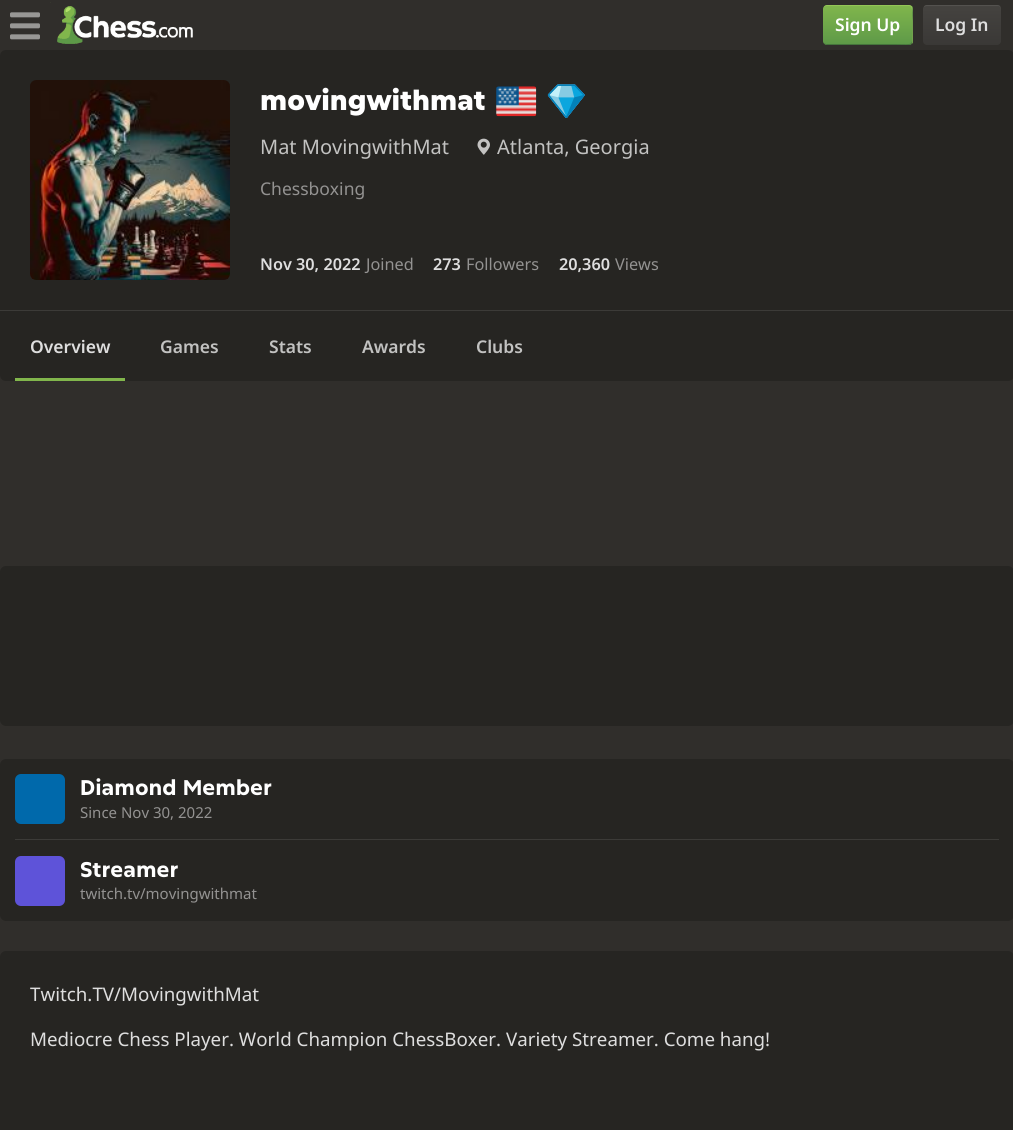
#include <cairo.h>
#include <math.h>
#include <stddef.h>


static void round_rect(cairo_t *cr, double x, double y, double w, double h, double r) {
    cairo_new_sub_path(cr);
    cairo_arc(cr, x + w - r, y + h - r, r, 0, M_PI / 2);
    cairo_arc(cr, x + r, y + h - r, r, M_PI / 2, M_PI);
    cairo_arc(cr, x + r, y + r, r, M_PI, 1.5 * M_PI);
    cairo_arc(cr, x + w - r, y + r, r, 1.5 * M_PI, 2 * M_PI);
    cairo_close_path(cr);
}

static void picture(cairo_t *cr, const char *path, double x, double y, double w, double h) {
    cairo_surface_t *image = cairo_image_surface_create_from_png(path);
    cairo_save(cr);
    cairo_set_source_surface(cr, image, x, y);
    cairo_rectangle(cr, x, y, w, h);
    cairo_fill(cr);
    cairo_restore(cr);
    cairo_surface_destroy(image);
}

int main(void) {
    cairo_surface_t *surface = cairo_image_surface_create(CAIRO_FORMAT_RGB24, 1013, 1130);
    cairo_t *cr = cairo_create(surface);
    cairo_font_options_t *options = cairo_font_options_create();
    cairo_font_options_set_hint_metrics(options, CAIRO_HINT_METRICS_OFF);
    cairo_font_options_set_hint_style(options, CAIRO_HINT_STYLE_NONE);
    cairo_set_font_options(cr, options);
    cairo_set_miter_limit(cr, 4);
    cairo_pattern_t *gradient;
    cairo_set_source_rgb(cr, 0.188, 0.18, 0.169);
    cairo_paint(cr);
    picture(cr, "img1.png", 10, 12, 30, 28);
    picture(cr, "img2.png", 50, 2, 143, 42);
    gradient = cairo_pattern_create_linear(868, 5, 868, 45);
    cairo_pattern_add_color_stop_rgba(gradient, 0, 0.506, 0.714, 0.298, 1);
    cairo_pattern_add_color_stop_rgba(gradient, 1, 0.365, 0.6, 0.282, 1);
    cairo_set_source(cr, gradient);
    cairo_pattern_destroy(gradient);
    round_rect(cr, 823, 5, 90, 40, 4);
    cairo_fill(cr);
    cairo_set_source_rgb(cr, 0.271, 0.459, 0.235);
    cairo_new_path(cr);
    cairo_move_to(cr, 824, 43);
    cairo_curve_to(cr, 824, 44, 826, 45, 827, 45);
    cairo_line_to(cr, 909, 45);
    cairo_curve_to(cr, 911, 45, 913, 43, 913, 41);
    cairo_line_to(cr, 913, 9);
    cairo_curve_to(cr, 913, 8, 913, 7, 912, 6);
    cairo_line_to(cr, 912, 29);
    cairo_curve_to(cr, 912, 47, 915, 44, 895, 44);
    cairo_line_to(cr, 826, 44);
    cairo_close_path(cr);
    cairo_fill(cr);
    cairo_set_source_rgba(cr, 0.698, 0.878, 0.408, 0.4);
    cairo_new_path(cr);
    cairo_move_to(cr, 826, 6);
    cairo_line_to(cr, 909, 6);
    cairo_curve_to(cr, 914, 6, 912, 19, 912, 21);
    cairo_line_to(cr, 912, 44);
    cairo_curve_to(cr, 913, 43, 913, 42, 913, 41);
    cairo_line_to(cr, 913, 9);
    cairo_curve_to(cr, 913, 7, 911, 5, 909, 5);
    cairo_line_to(cr, 827, 5);
    cairo_curve_to(cr, 826, 5, 824, 6, 824, 7);
    cairo_close_path(cr);
    cairo_fill(cr);
    cairo_select_font_face(cr, "Noto Sans SemiBold", CAIRO_FONT_SLANT_NORMAL, CAIRO_FONT_WEIGHT_NORMAL);
    cairo_set_font_size(cr, 17.5);
    cairo_set_source_rgb(cr, 1, 1, 1);
    cairo_move_to(cr, 835, 31);
    cairo_show_text(cr, "Sign Up");
    gradient = cairo_pattern_create_linear(962, 5, 962, 45);
    cairo_pattern_add_color_stop_rgba(gradient, 0, 0.271, 0.263, 0.251, 1);
    cairo_pattern_add_color_stop_rgba(gradient, 1, 0.227, 0.22, 0.212, 1);
    cairo_set_source(cr, gradient);
    cairo_pattern_destroy(gradient);
    round_rect(cr, 923, 5, 78, 40, 4);
    cairo_fill(cr);
    cairo_set_source_rgba(cr, 1, 1, 1, 0.08);
    cairo_new_path(cr);
    cairo_move_to(cr, 926, 6);
    cairo_line_to(cr, 998, 6);
    cairo_curve_to(cr, 1000, 6, 1001, 8, 1001, 10);
    cairo_curve_to(cr, 1001, 8, 1001, 6, 999, 5);
    cairo_line_to(cr, 926, 5);
    cairo_curve_to(cr, 925, 5, 924, 6, 924, 7);
    cairo_close_path(cr);
    cairo_fill(cr);
    cairo_set_source_rgb(cr, 0.871, 0.871, 0.871);
    cairo_move_to(cr, 935, 31);
    cairo_show_text(cr, "Log In");
    cairo_set_source_rgb(cr, 0.149, 0.145, 0.133);
    cairo_new_path(cr);
    cairo_move_to(cr, 6, 50);
    cairo_line_to(cr, 1008, 50);
    cairo_curve_to(cr, 1011.5, 50, 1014, 52.5, 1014, 56);
    cairo_line_to(cr, 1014, 310);
    cairo_line_to(cr, 0, 310);
    cairo_line_to(cr, 0, 56);
    cairo_curve_to(cr, 0, 52.5, 2.5, 50, 6, 50);
    cairo_close_path(cr);
    cairo_fill(cr);
    picture(cr, "img3.png", 30, 80, 200, 200);
    cairo_select_font_face(cr, "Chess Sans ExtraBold", CAIRO_FONT_SLANT_NORMAL, CAIRO_FONT_WEIGHT_NORMAL);
    cairo_set_font_size(cr, 27.5);
    cairo_set_source_rgb(cr, 1, 1, 1);
    cairo_move_to(cr, 260, 110);
    cairo_show_text(cr, "movingwithmat");
    picture(cr, "img4.png", 496, 86, 41, 31);
    picture(cr, "img5.png", 547, 84, 38, 34);
    cairo_select_font_face(cr, "Noto Sans", CAIRO_FONT_SLANT_NORMAL, CAIRO_FONT_WEIGHT_NORMAL);
    cairo_set_font_size(cr, 20);
    cairo_set_source_rgb(cr, 0.761, 0.761, 0.757);
    cairo_move_to(cr, 260, 154);
    cairo_show_text(cr, "Mat MovingwithMat");
    picture(cr, "img6.png", 477, 138, 13, 17);
    cairo_move_to(cr, 497, 154);
    cairo_show_text(cr, "Atlanta, Georgia");
    cairo_set_font_size(cr, 17.5);
    cairo_set_source_rgb(cr, 0.576, 0.573, 0.569);
    cairo_move_to(cr, 260, 195);
    cairo_show_text(cr, "Chessboxing");
    cairo_select_font_face(cr, "Noto Sans SemiBold", CAIRO_FONT_SLANT_NORMAL, CAIRO_FONT_WEIGHT_NORMAL);
    cairo_set_font_size(cr, 16.25);
    cairo_set_source_rgb(cr, 0.871, 0.871, 0.871);
    cairo_move_to(cr, 260, 270);
    cairo_show_text(cr, "Nov 30, 2022");
    cairo_select_font_face(cr, "Noto Sans", CAIRO_FONT_SLANT_NORMAL, CAIRO_FONT_WEIGHT_NORMAL);
    cairo_set_source_rgb(cr, 0.576, 0.573, 0.569);
    cairo_move_to(cr, 366, 270);
    cairo_show_text(cr, "Joined");
    cairo_select_font_face(cr, "Noto Sans SemiBold", CAIRO_FONT_SLANT_NORMAL, CAIRO_FONT_WEIGHT_NORMAL);
    cairo_set_source_rgb(cr, 0.871, 0.871, 0.871);
    cairo_move_to(cr, 433, 270);
    cairo_show_text(cr, "273");
    cairo_select_font_face(cr, "Noto Sans", CAIRO_FONT_SLANT_NORMAL, CAIRO_FONT_WEIGHT_NORMAL);
    cairo_set_source_rgb(cr, 0.576, 0.573, 0.569);
    cairo_move_to(cr, 466, 270);
    cairo_show_text(cr, "Followers");
    cairo_select_font_face(cr, "Noto Sans SemiBold", CAIRO_FONT_SLANT_NORMAL, CAIRO_FONT_WEIGHT_NORMAL);
    cairo_set_source_rgb(cr, 0.871, 0.871, 0.871);
    cairo_move_to(cr, 559, 270);
    cairo_show_text(cr, "20,360");
    cairo_select_font_face(cr, "Noto Sans", CAIRO_FONT_SLANT_NORMAL, CAIRO_FONT_WEIGHT_NORMAL);
    cairo_set_source_rgb(cr, 0.576, 0.573, 0.569);
    cairo_move_to(cr, 615, 270);
    cairo_show_text(cr, "Views");
    cairo_set_source_rgb(cr, 0.149, 0.145, 0.133);
    cairo_new_path(cr);
    cairo_move_to(cr, 0, 310);
    cairo_line_to(cr, 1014, 310);
    cairo_line_to(cr, 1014, 375);
    cairo_curve_to(cr, 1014, 378.5, 1011.5, 381, 1008, 381);
    cairo_line_to(cr, 6, 381);
    cairo_curve_to(cr, 2.5, 381, 0, 378.5, 0, 375);
    cairo_close_path(cr);
    cairo_fill(cr);
    cairo_set_source_rgb(cr, 0.235, 0.231, 0.22);
    cairo_rectangle(cr, 0, 310, 1013, 1);
    cairo_fill(cr);
    cairo_set_source_rgb(cr, 0.506, 0.714, 0.298);
    cairo_rectangle(cr, 15, 378, 110, 3);
    cairo_fill(cr);
    cairo_select_font_face(cr, "Noto Sans SemiBold", CAIRO_FONT_SLANT_NORMAL, CAIRO_FONT_WEIGHT_NORMAL);
    cairo_set_font_size(cr, 17.5);
    cairo_set_source_rgb(cr, 0.871, 0.871, 0.871);
    cairo_move_to(cr, 30, 353);
    cairo_show_text(cr, "Overview");
    cairo_set_source_rgb(cr, 0.761, 0.761, 0.757);
    cairo_move_to(cr, 160, 353);
    cairo_show_text(cr, "Games");
    cairo_move_to(cr, 269, 353);
    cairo_show_text(cr, "Stats");
    cairo_move_to(cr, 362, 353);
    cairo_show_text(cr, "Awards");
    cairo_move_to(cr, 476, 353);
    cairo_show_text(cr, "Clubs");
    cairo_set_source_rgb(cr, 0.149, 0.145, 0.133);
    round_rect(cr, 0, 566, 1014, 160, 6);
    cairo_fill(cr);
    round_rect(cr, 0, 759, 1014, 162, 6);
    cairo_fill(cr);
    cairo_set_source_rgb(cr, 0.235, 0.231, 0.22);
    cairo_rectangle(cr, 15, 839, 984, 1);
    cairo_fill(cr);
    cairo_set_source_rgb(cr, 0, 0.412, 0.671);
    round_rect(cr, 15, 774, 50, 50, 6);
    cairo_fill(cr);
    cairo_select_font_face(cr, "Chess Sans", CAIRO_FONT_SLANT_NORMAL, CAIRO_FONT_WEIGHT_BOLD);
    cairo_set_font_size(cr, 21.25);
    cairo_set_source_rgb(cr, 1, 1, 1);
    cairo_move_to(cr, 80, 795);
    cairo_show_text(cr, "Diamond Member");
    cairo_select_font_face(cr, "Noto Sans", CAIRO_FONT_SLANT_NORMAL, CAIRO_FONT_WEIGHT_NORMAL);
    cairo_set_font_size(cr, 15);
    cairo_set_source_rgb(cr, 0.576, 0.573, 0.569);
    cairo_move_to(cr, 80, 818);
    cairo_show_text(cr, "Since Nov 30, 2022");
    cairo_set_source_rgb(cr, 0.369, 0.325, 0.851);
    round_rect(cr, 15, 856, 50, 50, 6);
    cairo_fill(cr);
    cairo_select_font_face(cr, "Chess Sans", CAIRO_FONT_SLANT_NORMAL, CAIRO_FONT_WEIGHT_BOLD);
    cairo_set_font_size(cr, 21.25);
    cairo_set_source_rgb(cr, 1, 1, 1);
    cairo_move_to(cr, 80, 877);
    cairo_show_text(cr, "Streamer");
    cairo_select_font_face(cr, "Noto Sans", CAIRO_FONT_SLANT_NORMAL, CAIRO_FONT_WEIGHT_NORMAL);
    cairo_set_font_size(cr, 15);
    cairo_set_source_rgb(cr, 0.576, 0.573, 0.569);
    cairo_move_to(cr, 80, 899);
    cairo_show_text(cr, "twitch.tv/movingwithmat");
    cairo_set_source_rgb(cr, 0.149, 0.145, 0.133);
    round_rect(cr, 0, 951, 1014, 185, 6);
    cairo_fill(cr);
    cairo_set_font_size(cr, 18.75);
    cairo_set_source_rgb(cr, 0.871, 0.871, 0.871);
    cairo_move_to(cr, 30, 1001);
    cairo_show_text(cr, "Twitch.TV/MovingwithMat");
    cairo_move_to(cr, 30, 1046);
    cairo_show_text(cr, "Mediocre Chess Player. World Champion ChessBoxer. Variety Streamer. Come hang!");
    cairo_surface_write_to_png(surface, "page.png");
    cairo_font_options_destroy(options);
    cairo_destroy(cr);
    cairo_surface_destroy(surface);
    return 0;
}
